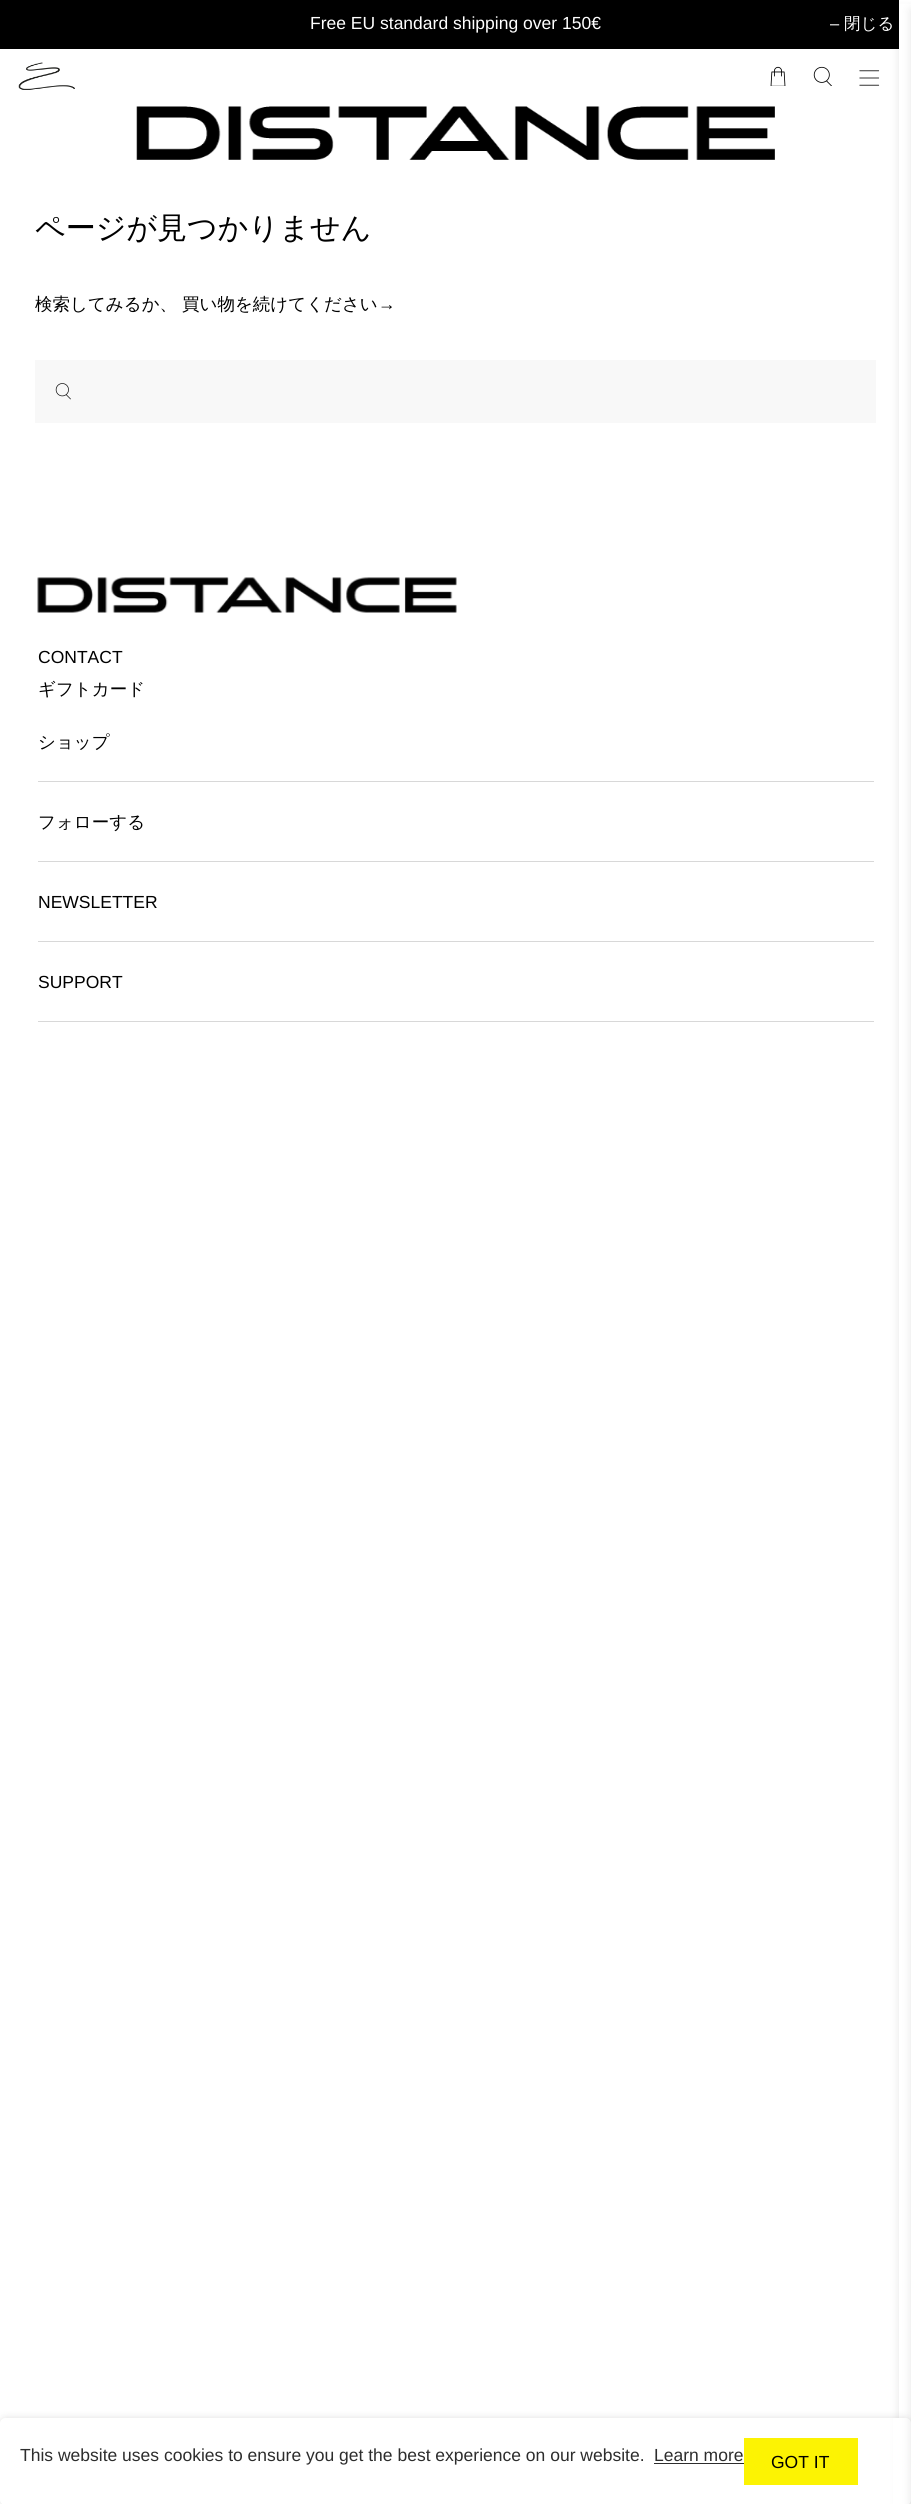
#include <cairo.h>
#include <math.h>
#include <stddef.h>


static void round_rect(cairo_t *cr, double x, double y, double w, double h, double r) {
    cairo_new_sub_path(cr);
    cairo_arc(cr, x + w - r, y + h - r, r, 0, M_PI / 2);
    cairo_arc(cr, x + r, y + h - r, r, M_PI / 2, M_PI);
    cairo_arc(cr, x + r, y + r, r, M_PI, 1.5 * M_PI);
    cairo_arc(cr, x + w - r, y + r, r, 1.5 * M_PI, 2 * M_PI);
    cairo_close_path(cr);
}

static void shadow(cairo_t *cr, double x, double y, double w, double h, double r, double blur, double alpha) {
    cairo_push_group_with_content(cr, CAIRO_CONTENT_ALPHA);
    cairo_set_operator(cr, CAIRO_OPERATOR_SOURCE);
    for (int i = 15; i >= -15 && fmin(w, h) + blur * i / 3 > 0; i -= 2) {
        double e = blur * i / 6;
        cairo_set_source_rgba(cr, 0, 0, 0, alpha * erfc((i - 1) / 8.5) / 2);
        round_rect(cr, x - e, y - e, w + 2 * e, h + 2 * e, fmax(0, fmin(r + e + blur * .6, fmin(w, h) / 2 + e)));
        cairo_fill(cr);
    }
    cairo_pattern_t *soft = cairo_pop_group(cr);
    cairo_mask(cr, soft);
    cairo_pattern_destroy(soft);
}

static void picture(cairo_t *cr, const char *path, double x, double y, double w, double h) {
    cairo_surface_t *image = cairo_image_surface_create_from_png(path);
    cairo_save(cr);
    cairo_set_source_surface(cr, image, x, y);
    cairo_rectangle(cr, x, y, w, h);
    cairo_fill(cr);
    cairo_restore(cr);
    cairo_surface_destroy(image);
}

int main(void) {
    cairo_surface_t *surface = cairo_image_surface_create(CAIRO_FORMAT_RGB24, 911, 2504);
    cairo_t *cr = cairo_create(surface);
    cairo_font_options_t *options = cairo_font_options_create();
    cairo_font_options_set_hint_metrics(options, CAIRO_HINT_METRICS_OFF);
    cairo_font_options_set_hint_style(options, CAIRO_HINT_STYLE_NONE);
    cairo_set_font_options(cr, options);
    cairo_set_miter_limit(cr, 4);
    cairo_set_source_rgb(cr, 1, 1, 1);
    cairo_paint(cr);
    picture(cr, "img1.png", 18, 62, 57, 28);
    picture(cr, "img2.png", 770, 66, 16, 20);
    cairo_set_source_rgb(cr, 0, 0, 0);
    cairo_rectangle(cr, 0, 0, 899, 49);
    cairo_fill(cr);
    cairo_set_source_rgb(cr, 0.039, 0.039, 0.039);
    shadow(cr, 899, 10, 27, 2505, 0, 5, 0.1);
    cairo_set_source_rgb(cr, 1, 1, 1);
    cairo_rectangle(cr, 899, 4, 12, 2414);
    cairo_fill(cr);
    picture(cr, "img3.png", 813, 66, 19, 20);
    picture(cr, "img4.png", 859, 70, 21, 16);
    cairo_select_font_face(cr, "Liberation Sans", CAIRO_FONT_SLANT_NORMAL, CAIRO_FONT_WEIGHT_NORMAL);
    cairo_set_font_size(cr, 17.5);
    cairo_move_to(cr, 310, 29);
    cairo_show_text(cr, "Free EU standard shipping over 150€");
    cairo_set_font_size(cr, 16.5);
    cairo_move_to(cr, 830, 29);
    cairo_show_text(cr, "–");
    cairo_select_font_face(cr, "WenQuanYi Zen Hei Medium", CAIRO_FONT_SLANT_NORMAL, CAIRO_FONT_WEIGHT_NORMAL);
    cairo_move_to(cr, 844, 29);
    cairo_show_text(cr, "閉じる");
    cairo_rectangle(cr, 893, 2418, 18, 86);
    cairo_fill(cr);
    cairo_set_source_rgb(cr, 0.039, 0.039, 0.039);
    shadow(cr, 911, 10, 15, 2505, 0, 5, 0.1);
    picture(cr, "img5.png", 136, 106, 639, 54);
    cairo_set_font_size(cr, 30);
    cairo_set_source_rgb(cr, 0, 0, 0);
    cairo_move_to(cr, 35, 238);
    cairo_show_text(cr, "ページが見つかりません");
    cairo_set_font_size(cr, 17.5);
    cairo_move_to(cr, 35, 310);
    cairo_show_text(cr, "検索してみるか、");
    cairo_move_to(cr, 182, 310);
    cairo_show_text(cr, "買い物を続けてください");
    cairo_select_font_face(cr, "Liberation Sans", CAIRO_FONT_SLANT_NORMAL, CAIRO_FONT_WEIGHT_NORMAL);
    cairo_move_to(cr, 378, 310);
    cairo_show_text(cr, "→");
    cairo_set_source_rgb(cr, 0.969, 0.969, 0.969);
    cairo_rectangle(cr, 35, 360, 841, 63);
    cairo_fill(cr);
    picture(cr, "img6.png", 55, 383, 16, 17);
    picture(cr, "img7.png", 37, 577, 420, 36);
    cairo_set_source_rgb(cr, 0, 0, 0);
    cairo_move_to(cr, 38, 663);
    cairo_show_text(cr, "CONTACT");
    cairo_select_font_face(cr, "WenQuanYi Zen Hei Medium", CAIRO_FONT_SLANT_NORMAL, CAIRO_FONT_WEIGHT_NORMAL);
    cairo_move_to(cr, 38, 695);
    cairo_show_text(cr, "ギフトカード");
    cairo_set_source_rgb(cr, 0.847, 0.847, 0.847);
    cairo_rectangle(cr, 38, 781, 836, 1);
    cairo_fill(cr);
    cairo_set_source_rgb(cr, 0, 0, 0);
    cairo_move_to(cr, 38, 748);
    cairo_show_text(cr, "ショップ");
    cairo_set_source_rgb(cr, 0.847, 0.847, 0.847);
    cairo_rectangle(cr, 38, 861, 836, 1);
    cairo_fill(cr);
    cairo_set_source_rgb(cr, 0, 0, 0);
    cairo_move_to(cr, 38, 828);
    cairo_show_text(cr, "フォローする");
    cairo_set_source_rgb(cr, 0.847, 0.847, 0.847);
    cairo_rectangle(cr, 38, 941, 836, 1);
    cairo_fill(cr);
    cairo_select_font_face(cr, "Liberation Sans", CAIRO_FONT_SLANT_NORMAL, CAIRO_FONT_WEIGHT_NORMAL);
    cairo_set_source_rgb(cr, 0, 0, 0);
    cairo_move_to(cr, 38, 908);
    cairo_show_text(cr, "NEWSLETTER");
    cairo_set_source_rgb(cr, 0.847, 0.847, 0.847);
    cairo_rectangle(cr, 38, 1021, 836, 1);
    cairo_fill(cr);
    cairo_set_source_rgb(cr, 0, 0, 0);
    cairo_move_to(cr, 38, 988);
    cairo_show_text(cr, "SUPPORT");
    cairo_save(cr);
    cairo_set_fill_rule(cr, CAIRO_FILL_RULE_EVEN_ODD);
    cairo_new_path(cr);
    cairo_move_to(cr, 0, 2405);
    cairo_line_to(cr, 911, 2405);
    cairo_line_to(cr, 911, 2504);
    cairo_line_to(cr, 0, 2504);
    cairo_close_path(cr);
    cairo_move_to(cr, 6, 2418);
    cairo_line_to(cr, 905, 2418);
    cairo_curve_to(cr, 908.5, 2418, 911, 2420.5, 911, 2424);
    cairo_line_to(cr, 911, 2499);
    cairo_curve_to(cr, 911, 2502.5, 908.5, 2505, 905, 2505);
    cairo_line_to(cr, 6, 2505);
    cairo_curve_to(cr, 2.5, 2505, 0, 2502.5, 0, 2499);
    cairo_line_to(cr, 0, 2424);
    cairo_curve_to(cr, 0, 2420.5, 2.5, 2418, 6, 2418);
    cairo_close_path(cr);
    cairo_clip(cr);
    cairo_set_source_rgb(cr, 0, 0, 0);
    shadow(cr, 0, 2418, 911, 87, 6, 4, 0.12);
    cairo_restore(cr);
    cairo_set_source_rgb(cr, 0.176, 0.176, 0.176);
    cairo_move_to(cr, 20, 2461);
    cairo_show_text(cr, "This website uses cookies to ensure you get the best experience on our website.");
    cairo_move_to(cr, 654, 2461);
    cairo_show_text(cr, "Learn more");
    cairo_rectangle(cr, 654, 2463, 90, 1);
    cairo_fill(cr);
    cairo_set_source_rgb(cr, 0.988, 0.953, 0.012);
    cairo_rectangle(cr, 744, 2438, 114, 47);
    cairo_fill(cr);
    cairo_set_source_rgb(cr, 0, 0, 0);
    cairo_move_to(cr, 771, 2468);
    cairo_show_text(cr, "GOT IT");
    cairo_surface_write_to_png(surface, "page.png");
    cairo_font_options_destroy(options);
    cairo_destroy(cr);
    cairo_surface_destroy(surface);
    return 0;
}
